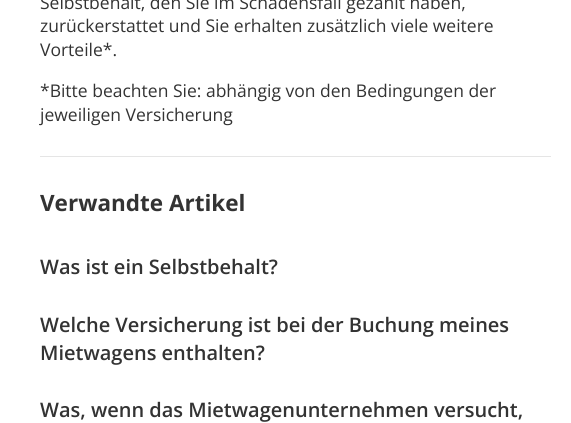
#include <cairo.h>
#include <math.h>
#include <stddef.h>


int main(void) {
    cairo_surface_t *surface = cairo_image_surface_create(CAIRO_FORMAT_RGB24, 571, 423);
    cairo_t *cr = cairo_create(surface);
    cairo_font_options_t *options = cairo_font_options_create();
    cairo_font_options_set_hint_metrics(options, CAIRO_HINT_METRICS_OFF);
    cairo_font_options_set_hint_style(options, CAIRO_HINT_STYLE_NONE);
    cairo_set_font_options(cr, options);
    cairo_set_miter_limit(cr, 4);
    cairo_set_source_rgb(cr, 1, 1, 1);
    cairo_paint(cr);
    cairo_select_font_face(cr, "Open Sans", CAIRO_FONT_SLANT_NORMAL, CAIRO_FONT_WEIGHT_NORMAL);
    cairo_set_font_size(cr, 17.5);
    cairo_set_source_rgb(cr, 0.2, 0.2, 0.2);
    cairo_move_to(cr, 40, 9);
    cairo_show_text(cr, "Selbstbehalt, den Sie im Schadensfall gezahlt haben,");
    cairo_move_to(cr, 40, 32);
    cairo_show_text(cr, "zurückerstattet und Sie erhalten zusätzlich viele weitere");
    cairo_move_to(cr, 40, 56);
    cairo_show_text(cr, "Vorteile*.");
    cairo_move_to(cr, 40, 97);
    cairo_show_text(cr, "*Bitte beachten Sie: abhängig von den Bedingungen der");
    cairo_move_to(cr, 40, 121);
    cairo_show_text(cr, "jeweiligen Versicherung");
    cairo_set_source_rgb(cr, 0.898, 0.898, 0.898);
    cairo_rectangle(cr, 40, 156, 511, 1);
    cairo_fill(cr);
    cairo_select_font_face(cr, "Open Sans", CAIRO_FONT_SLANT_NORMAL, CAIRO_FONT_WEIGHT_BOLD);
    cairo_set_font_size(cr, 22.5);
    cairo_set_source_rgb(cr, 0.2, 0.2, 0.2);
    cairo_move_to(cr, 40, 211);
    cairo_show_text(cr, "Verwandte Artikel");
    cairo_select_font_face(cr, "Open Sans SemiBold", CAIRO_FONT_SLANT_NORMAL, CAIRO_FONT_WEIGHT_NORMAL);
    cairo_set_font_size(cr, 20);
    cairo_move_to(cr, 40, 274);
    cairo_show_text(cr, "Was ist ein Selbstbehalt?");
    cairo_move_to(cr, 40, 332);
    cairo_show_text(cr, "Welche Versicherung ist bei der Buchung meines");
    cairo_move_to(cr, 40, 360);
    cairo_show_text(cr, "Mietwagens enthalten?");
    cairo_move_to(cr, 40, 417);
    cairo_show_text(cr, "Was, wenn das Mietwagenunternehmen versucht,");
    cairo_surface_write_to_png(surface, "page.png");
    cairo_font_options_destroy(options);
    cairo_destroy(cr);
    cairo_surface_destroy(surface);
    return 0;
}
